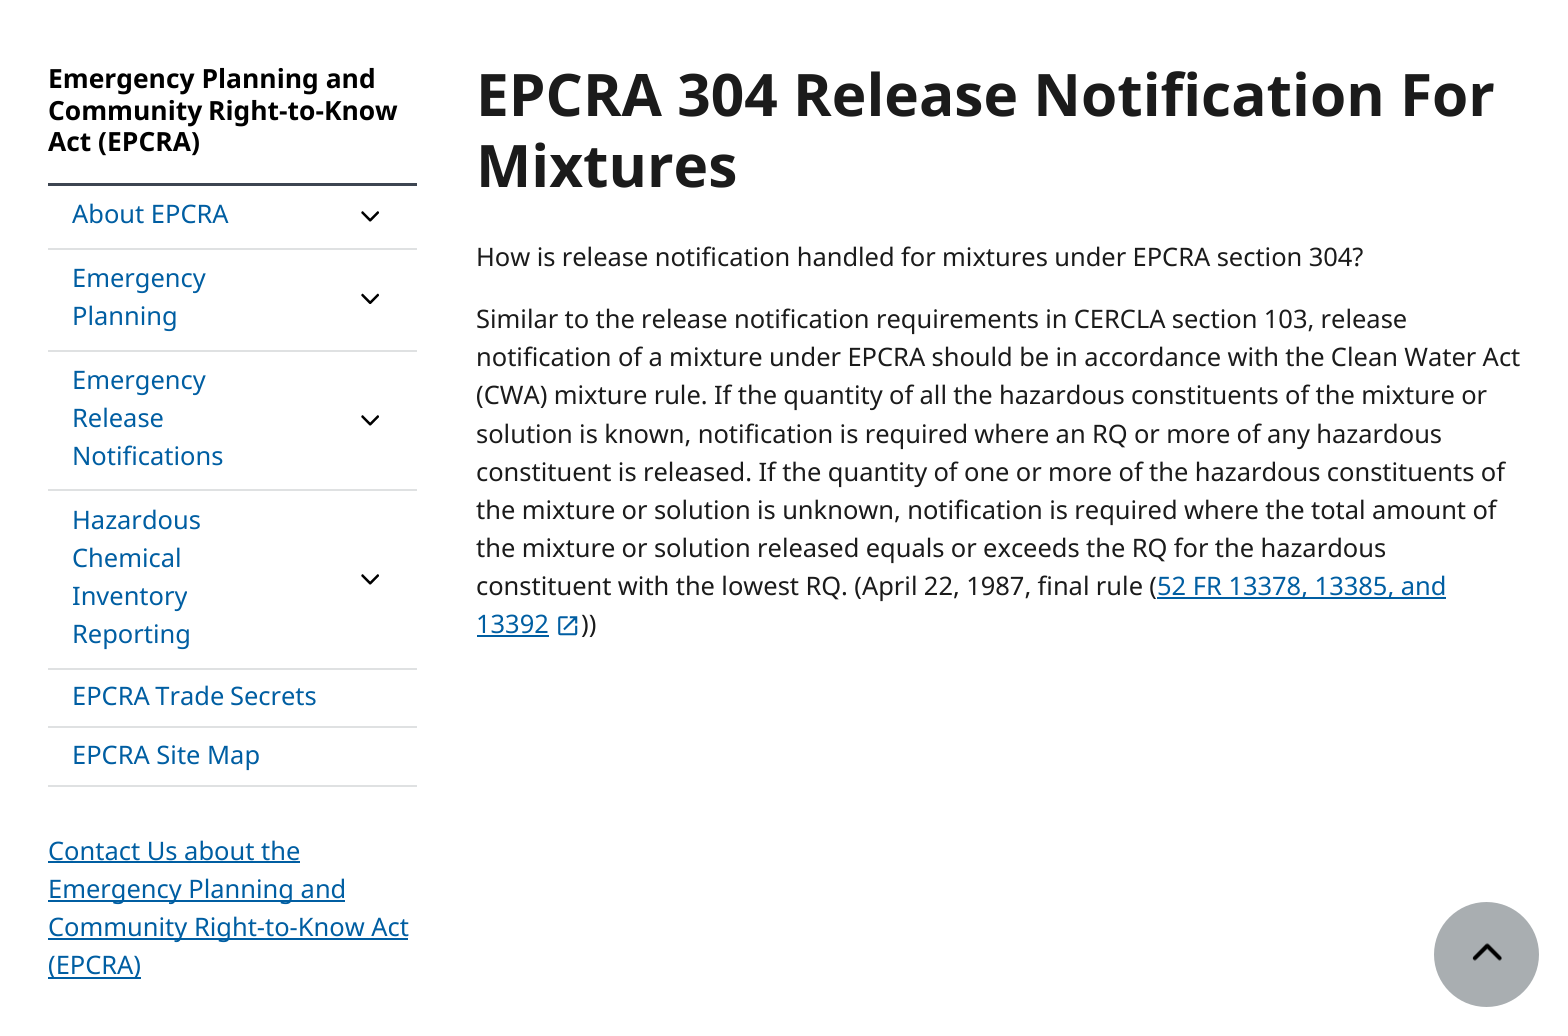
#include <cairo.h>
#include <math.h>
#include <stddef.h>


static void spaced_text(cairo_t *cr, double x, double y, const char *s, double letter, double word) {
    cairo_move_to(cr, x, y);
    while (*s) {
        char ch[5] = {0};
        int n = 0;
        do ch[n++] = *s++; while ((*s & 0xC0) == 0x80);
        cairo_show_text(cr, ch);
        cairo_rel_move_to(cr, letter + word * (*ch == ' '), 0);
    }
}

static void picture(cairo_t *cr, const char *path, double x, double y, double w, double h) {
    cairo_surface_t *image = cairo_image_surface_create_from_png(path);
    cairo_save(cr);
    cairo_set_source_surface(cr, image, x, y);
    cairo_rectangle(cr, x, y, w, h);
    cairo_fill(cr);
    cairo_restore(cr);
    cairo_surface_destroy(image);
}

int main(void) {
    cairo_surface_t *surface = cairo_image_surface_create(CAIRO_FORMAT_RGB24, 1568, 1036);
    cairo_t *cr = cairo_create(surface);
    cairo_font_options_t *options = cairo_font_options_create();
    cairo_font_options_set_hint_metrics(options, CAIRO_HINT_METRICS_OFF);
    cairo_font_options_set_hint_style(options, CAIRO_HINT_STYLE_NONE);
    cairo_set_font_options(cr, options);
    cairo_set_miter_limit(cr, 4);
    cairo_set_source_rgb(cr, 1, 1, 1);
    cairo_paint(cr);
    cairo_select_font_face(cr, "Noto Sans Arabic", CAIRO_FONT_SLANT_NORMAL, CAIRO_FONT_WEIGHT_BOLD);
    cairo_set_font_size(cr, 26.4);
    cairo_set_source_rgb(cr, 0, 0, 0);
    cairo_move_to(cr, 48, 88);
    cairo_show_text(cr, "Emergency Planning and");
    spaced_text(cr, 48, 120, "Community Right-to-Know", 0, -1);
    cairo_move_to(cr, 48, 151);
    cairo_show_text(cr, "Act (EPCRA)");
    cairo_set_source_rgb(cr, 0.239, 0.271, 0.318);
    cairo_rectangle(cr, 48, 183, 369, 3);
    cairo_fill(cr);
    cairo_set_source_rgb(cr, 0.875, 0.882, 0.886);
    cairo_rectangle(cr, 48, 785, 369, 2);
    cairo_fill(cr);
    cairo_select_font_face(cr, "Noto Sans Arabic", CAIRO_FONT_SLANT_NORMAL, CAIRO_FONT_WEIGHT_NORMAL);
    cairo_set_font_size(cr, 25.45);
    cairo_set_source_rgb(cr, 0, 0.369, 0.635);
    cairo_move_to(cr, 72, 223);
    cairo_show_text(cr, "About EPCRA");
    picture(cr, "img1.png", 361, 211, 18, 11);
    cairo_set_source_rgb(cr, 0.875, 0.882, 0.886);
    cairo_rectangle(cr, 48, 248, 369, 2);
    cairo_fill(cr);
    cairo_set_source_rgb(cr, 0, 0.369, 0.635);
    cairo_move_to(cr, 72, 287);
    cairo_show_text(cr, "Emergency");
    cairo_move_to(cr, 72, 325);
    cairo_show_text(cr, "Planning");
    picture(cr, "img2.png", 361, 293, 18, 11);
    cairo_set_source_rgb(cr, 0.875, 0.882, 0.886);
    cairo_rectangle(cr, 48, 350, 369, 2);
    cairo_fill(cr);
    cairo_set_source_rgb(cr, 0, 0.369, 0.635);
    cairo_move_to(cr, 72, 389);
    cairo_show_text(cr, "Emergency");
    cairo_move_to(cr, 72, 427);
    cairo_show_text(cr, "Release");
    cairo_move_to(cr, 72, 465);
    cairo_show_text(cr, "Notifications");
    picture(cr, "img1.png", 361, 415, 18, 11);
    cairo_set_source_rgb(cr, 0.875, 0.882, 0.886);
    cairo_rectangle(cr, 48, 489, 369, 2);
    cairo_fill(cr);
    cairo_set_source_rgb(cr, 0, 0.369, 0.635);
    cairo_move_to(cr, 72, 529);
    cairo_show_text(cr, "Hazardous");
    cairo_move_to(cr, 72, 567);
    cairo_show_text(cr, "Chemical");
    cairo_move_to(cr, 72, 605);
    cairo_show_text(cr, "Inventory");
    cairo_move_to(cr, 72, 643);
    cairo_show_text(cr, "Reporting");
    picture(cr, "img1.png", 361, 574, 18, 11);
    cairo_set_source_rgb(cr, 0.875, 0.882, 0.886);
    cairo_rectangle(cr, 48, 668, 369, 2);
    cairo_fill(cr);
    cairo_set_source_rgb(cr, 0, 0.369, 0.635);
    spaced_text(cr, 72, 705, "EPCRA Trade Secrets", 0, -1);
    cairo_set_source_rgb(cr, 0.875, 0.882, 0.886);
    cairo_rectangle(cr, 48, 726, 369, 2);
    cairo_fill(cr);
    cairo_set_source_rgb(cr, 0, 0.369, 0.635);
    cairo_move_to(cr, 72, 764);
    cairo_show_text(cr, "EPCRA Site Map");
    cairo_move_to(cr, 48, 860);
    cairo_show_text(cr, "Contact Us about the");
    cairo_rectangle(cr, 48, 861, 252, 2);
    cairo_fill(cr);
    cairo_rectangle(cr, 48, 900, 297, 2);
    cairo_fill(cr);
    cairo_move_to(cr, 48, 898);
    cairo_show_text(cr, "Emergency Planning and");
    cairo_rectangle(cr, 48, 938, 360, 2);
    cairo_fill(cr);
    cairo_move_to(cr, 48, 936);
    cairo_show_text(cr, "Community Right-to-Know Act");
    cairo_rectangle(cr, 48, 977, 93, 2);
    cairo_fill(cr);
    cairo_move_to(cr, 48, 974);
    cairo_show_text(cr, "(EPCRA)");
    cairo_select_font_face(cr, "Noto Sans Arabic", CAIRO_FONT_SLANT_NORMAL, CAIRO_FONT_WEIGHT_BOLD);
    cairo_set_font_size(cr, 58.6);
    cairo_set_source_rgb(cr, 0.106, 0.106, 0.106);
    cairo_move_to(cr, 476, 116);
    cairo_show_text(cr, "EPCRA 304 Release Notification For");
    cairo_move_to(cr, 476, 187);
    cairo_show_text(cr, "Mixtures");
    cairo_select_font_face(cr, "Noto Sans Arabic", CAIRO_FONT_SLANT_NORMAL, CAIRO_FONT_WEIGHT_NORMAL);
    cairo_set_font_size(cr, 25.45);
    spaced_text(cr, 476, 266, "How is release notification handled for mixtures under EPCRA section 304?", 0, -0.25);
    spaced_text(cr, 476, 328, "Similar to the release notification requirements in CERCLA section 103, release", 0, -0.3);
    spaced_text(cr, 476, 366, "notification of a mixture under EPCRA should be in accordance with the Clean Water Act", 0, -0.25);
    spaced_text(cr, 476, 404, "(CWA) mixture rule. If the quantity of all the hazardous constituents of the mixture or", 0, -0.25);
    spaced_text(cr, 476, 443, "solution is known, notification is required where an RQ or more of any hazardous", 0, -0.3);
    spaced_text(cr, 476, 481, "constituent is released. If the quantity of one or more of the hazardous constituents of", 0, -0.25);
    spaced_text(cr, 476, 519, "the mixture or solution is unknown, notification is required where the total amount of", 0, -0.25);
    spaced_text(cr, 476, 557, "the mixture or solution released equals or exceeds the RQ for the hazardous", 0, -0.25);
    spaced_text(cr, 476, 595, "constituent with the lowest RQ. (April 22, 1987, final rule (", 0, -0.25);
    cairo_set_source_rgb(cr, 0, 0.369, 0.635);
    cairo_rectangle(cr, 1157, 597, 289, 2);
    cairo_fill(cr);
    cairo_move_to(cr, 1157, 595);
    cairo_show_text(cr, "52 FR 13378, 13385, and");
    cairo_move_to(cr, 476, 633);
    cairo_show_text(cr, "13392");
    cairo_rectangle(cr, 477, 635, 72, 2);
    cairo_fill(cr);
    picture(cr, "img3.png", 558, 616, 20, 20);
    cairo_set_source_rgb(cr, 0.106, 0.106, 0.106);
    cairo_move_to(cr, 581, 633);
    cairo_show_text(cr, "))");
    cairo_set_source_rgb(cr, 0.663, 0.682, 0.694);
    cairo_new_path(cr);
    cairo_arc(cr, 1486.5, 954.5, 52.5, 0, 2 * M_PI);
    cairo_fill(cr);
    picture(cr, "img4.png", 1472, 943, 30, 18);
    cairo_surface_write_to_png(surface, "page.png");
    cairo_font_options_destroy(options);
    cairo_destroy(cr);
    cairo_surface_destroy(surface);
    return 0;
}
